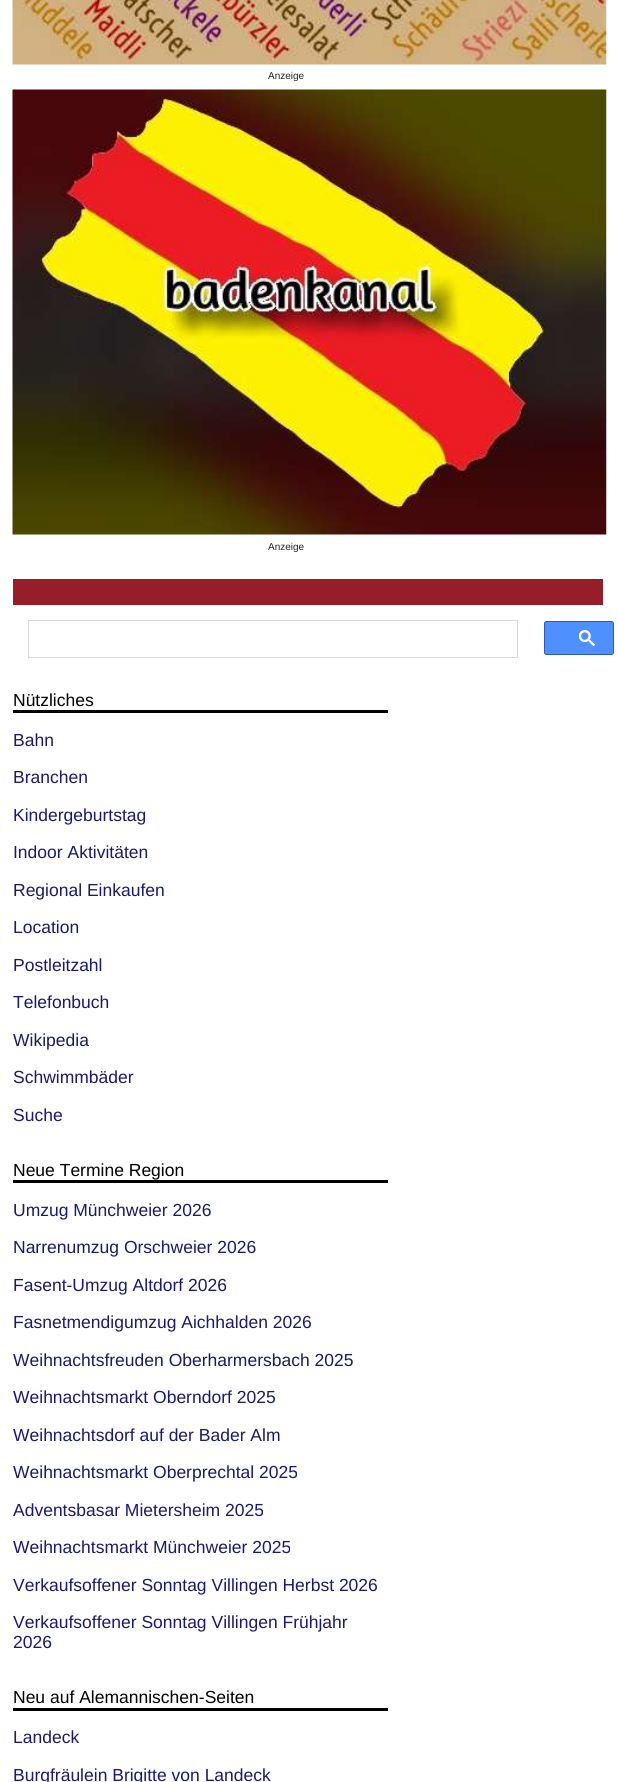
#include <cairo.h>
#include <math.h>
#include <stddef.h>


static void round_rect(cairo_t *cr, double x, double y, double w, double h, double r) {
    cairo_new_sub_path(cr);
    cairo_arc(cr, x + w - r, y + h - r, r, 0, M_PI / 2);
    cairo_arc(cr, x + r, y + h - r, r, M_PI / 2, M_PI);
    cairo_arc(cr, x + r, y + r, r, M_PI, 1.5 * M_PI);
    cairo_arc(cr, x + w - r, y + r, r, 1.5 * M_PI, 2 * M_PI);
    cairo_close_path(cr);
}

static void picture(cairo_t *cr, const char *path, double x, double y, double w, double h) {
    cairo_surface_t *image = cairo_image_surface_create_from_png(path);
    cairo_save(cr);
    cairo_set_source_surface(cr, image, x, y);
    cairo_rectangle(cr, x, y, w, h);
    cairo_fill(cr);
    cairo_restore(cr);
    cairo_surface_destroy(image);
}

int main(void) {
    cairo_surface_t *surface = cairo_image_surface_create(CAIRO_FORMAT_RGB24, 618, 1782);
    cairo_t *cr = cairo_create(surface);
    cairo_font_options_t *options = cairo_font_options_create();
    cairo_font_options_set_hint_metrics(options, CAIRO_HINT_METRICS_OFF);
    cairo_font_options_set_hint_style(options, CAIRO_HINT_STYLE_NONE);
    cairo_set_font_options(cr, options);
    cairo_set_miter_limit(cr, 4);
    cairo_set_source_rgb(cr, 1, 1, 1);
    cairo_paint(cr);
    picture(cr, "img1.png", 12, 0, 595, 65);
    cairo_select_font_face(cr, "Liberation Sans", CAIRO_FONT_SLANT_NORMAL, CAIRO_FONT_WEIGHT_NORMAL);
    cairo_set_font_size(cr, 10);
    cairo_set_source_rgb(cr, 0.137, 0.137, 0.137);
    cairo_move_to(cr, 268, 79);
    cairo_show_text(cr, "Anzeige");
    picture(cr, "img2.png", 12, 89, 595, 446);
    cairo_move_to(cr, 268, 550);
    cairo_show_text(cr, "Anzeige");
    cairo_set_source_rgb(cr, 0.588, 0.114, 0.165);
    cairo_rectangle(cr, 13, 579, 590, 26);
    cairo_fill(cr);
    cairo_rectangle(cr, 28.5, 620.5, 489, 37);
    cairo_set_source_rgb(cr, 0.851, 0.851, 0.851);
    cairo_set_line_width(cr, 1);
    cairo_stroke(cr);
    cairo_set_source_rgb(cr, 0.302, 0.565, 0.996);
    round_rect(cr, 544.5, 621.5, 69, 33, 2);
    cairo_fill_preserve(cr);
    cairo_set_source_rgb(cr, 0.184, 0.357, 0.718);
    cairo_stroke(cr);
    picture(cr, "img3.png", 579, 630, 16, 16);
    cairo_set_source_rgb(cr, 0, 0, 0);
    cairo_rectangle(cr, 13, 710, 375, 3);
    cairo_fill(cr);
    cairo_set_font_size(cr, 17.5);
    cairo_move_to(cr, 13, 706);
    cairo_show_text(cr, "Nützliches");
    cairo_set_source_rgb(cr, 0.098, 0.098, 0.439);
    cairo_move_to(cr, 13, 746);
    cairo_show_text(cr, "Bahn");
    cairo_move_to(cr, 13, 783);
    cairo_show_text(cr, "Branchen");
    cairo_move_to(cr, 13, 821);
    cairo_show_text(cr, "Kindergeburtstag");
    cairo_move_to(cr, 13, 858);
    cairo_show_text(cr, "Indoor Aktivitäten");
    cairo_move_to(cr, 13, 896);
    cairo_show_text(cr, "Regional Einkaufen");
    cairo_move_to(cr, 13, 933);
    cairo_show_text(cr, "Location");
    cairo_move_to(cr, 13, 971);
    cairo_show_text(cr, "Postleitzahl");
    cairo_move_to(cr, 13, 1008);
    cairo_show_text(cr, "Telefonbuch");
    cairo_move_to(cr, 13, 1046);
    cairo_show_text(cr, "Wikipedia");
    cairo_move_to(cr, 13, 1083);
    cairo_show_text(cr, "Schwimmbäder");
    cairo_move_to(cr, 13, 1121);
    cairo_show_text(cr, "Suche");
    cairo_set_source_rgb(cr, 0, 0, 0);
    cairo_rectangle(cr, 13, 1180, 375, 3);
    cairo_fill(cr);
    cairo_move_to(cr, 13, 1176);
    cairo_show_text(cr, "Neue Termine Region");
    cairo_set_source_rgb(cr, 0.098, 0.098, 0.439);
    cairo_move_to(cr, 13, 1216);
    cairo_show_text(cr, "Umzug Münchweier 2026");
    cairo_move_to(cr, 13, 1253);
    cairo_show_text(cr, "Narrenumzug Orschweier 2026");
    cairo_move_to(cr, 13, 1291);
    cairo_show_text(cr, "Fasent-Umzug Altdorf 2026");
    cairo_move_to(cr, 13, 1328);
    cairo_show_text(cr, "Fasnetmendigumzug Aichhalden 2026");
    cairo_move_to(cr, 13, 1366);
    cairo_show_text(cr, "Weihnachtsfreuden Oberharmersbach 2025");
    cairo_move_to(cr, 13, 1403);
    cairo_show_text(cr, "Weihnachtsmarkt Oberndorf 2025");
    cairo_move_to(cr, 13, 1441);
    cairo_show_text(cr, "Weihnachtsdorf auf der Bader Alm");
    cairo_move_to(cr, 13, 1478);
    cairo_show_text(cr, "Weihnachtsmarkt Oberprechtal 2025");
    cairo_move_to(cr, 13, 1516);
    cairo_show_text(cr, "Adventsbasar Mietersheim 2025");
    cairo_move_to(cr, 13, 1553);
    cairo_show_text(cr, "Weihnachtsmarkt Münchweier 2025");
    cairo_move_to(cr, 13, 1591);
    cairo_show_text(cr, "Verkaufsoffener Sonntag Villingen Herbst 2026");
    cairo_move_to(cr, 13, 1628);
    cairo_show_text(cr, "Verkaufsoffener Sonntag Villingen Frühjahr");
    cairo_move_to(cr, 13, 1648);
    cairo_show_text(cr, "2026");
    cairo_set_source_rgb(cr, 0, 0, 0);
    cairo_rectangle(cr, 13, 1708, 375, 3);
    cairo_fill(cr);
    cairo_move_to(cr, 13, 1703);
    cairo_show_text(cr, "Neu auf Alemannischen-Seiten");
    cairo_set_source_rgb(cr, 0.098, 0.098, 0.439);
    cairo_move_to(cr, 13, 1743);
    cairo_show_text(cr, "Landeck");
    cairo_move_to(cr, 13, 1781);
    cairo_show_text(cr, "Burgfräulein Brigitte von Landeck");
    cairo_surface_write_to_png(surface, "page.png");
    cairo_font_options_destroy(options);
    cairo_destroy(cr);
    cairo_surface_destroy(surface);
    return 0;
}
